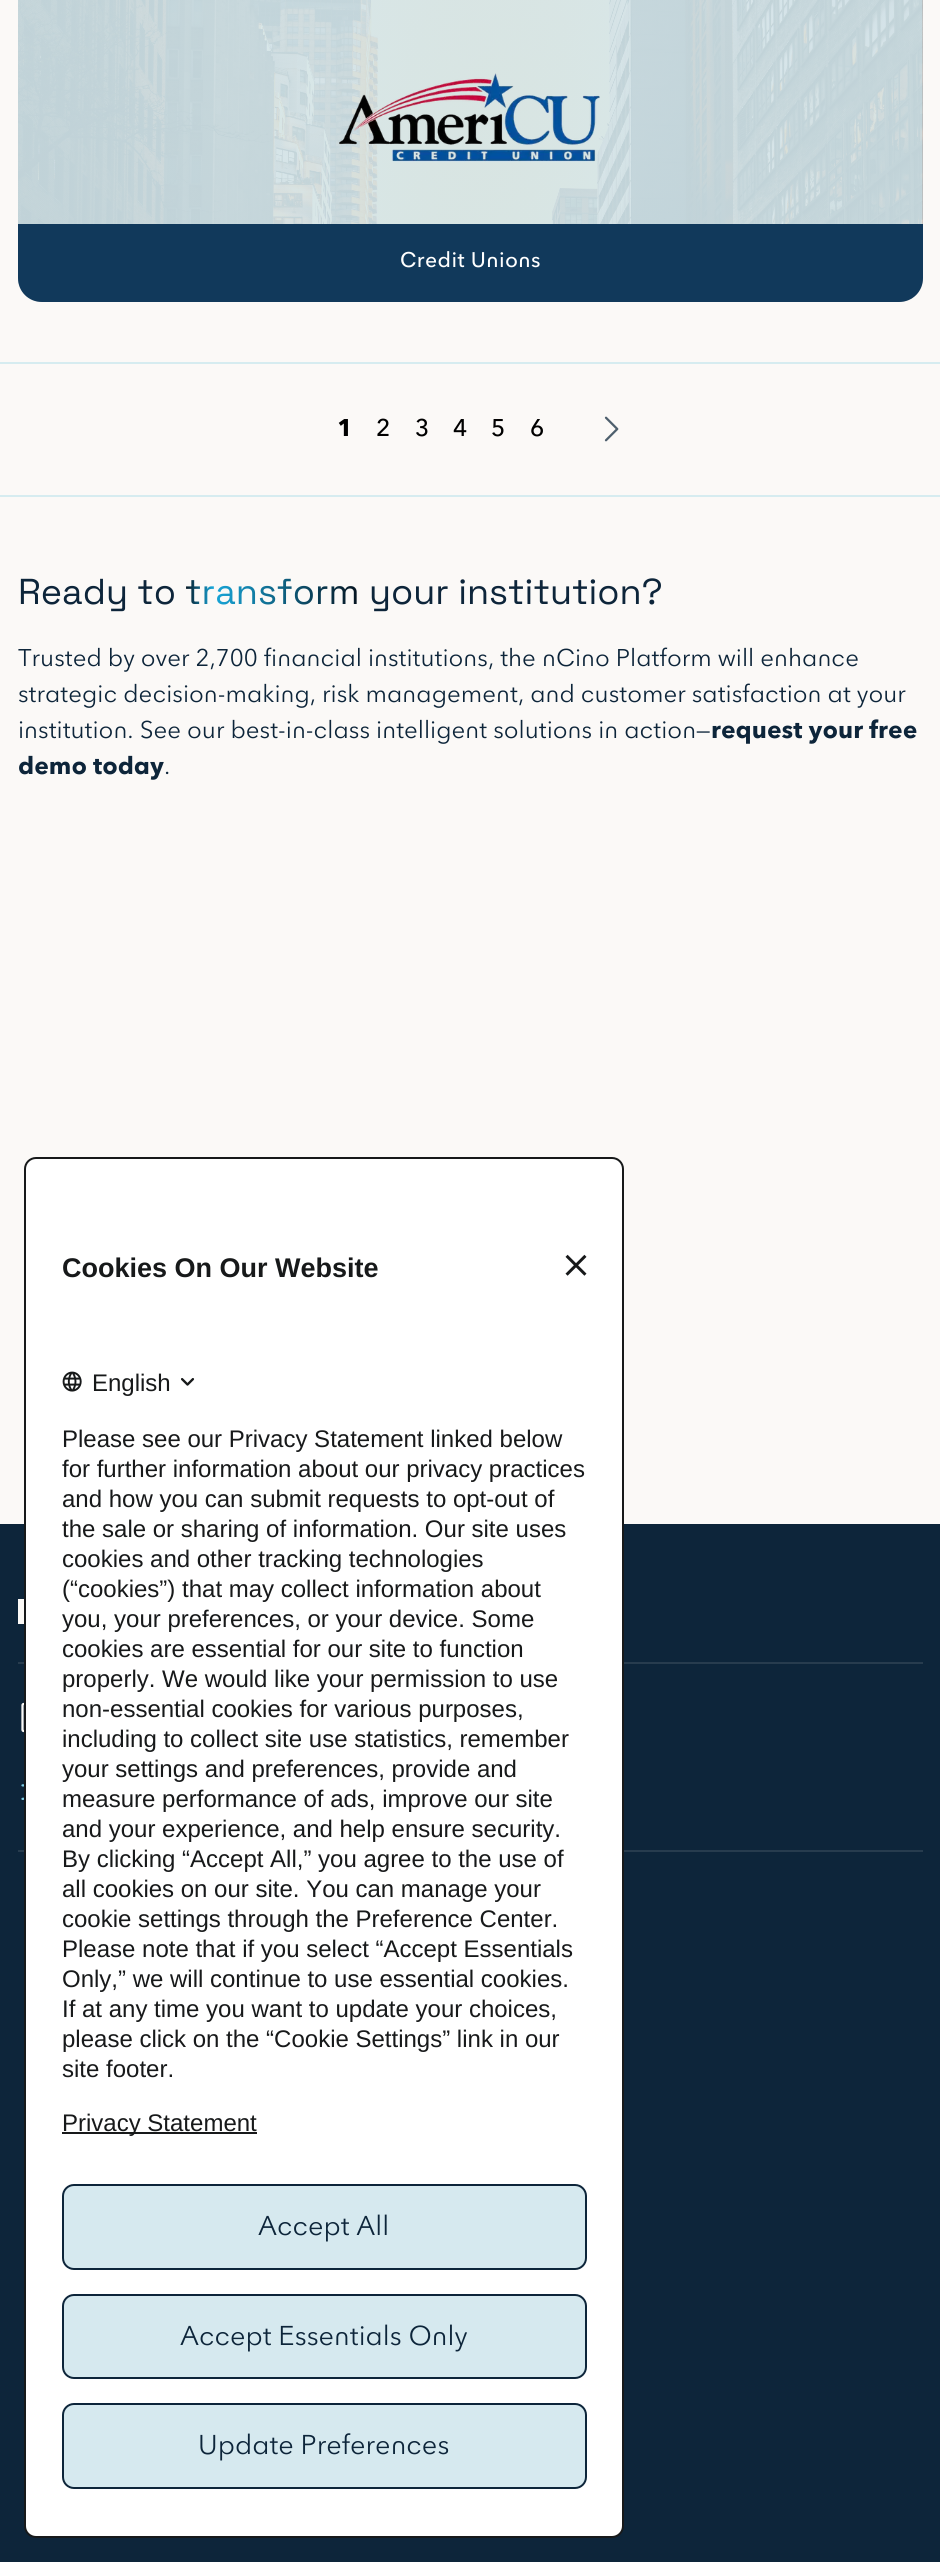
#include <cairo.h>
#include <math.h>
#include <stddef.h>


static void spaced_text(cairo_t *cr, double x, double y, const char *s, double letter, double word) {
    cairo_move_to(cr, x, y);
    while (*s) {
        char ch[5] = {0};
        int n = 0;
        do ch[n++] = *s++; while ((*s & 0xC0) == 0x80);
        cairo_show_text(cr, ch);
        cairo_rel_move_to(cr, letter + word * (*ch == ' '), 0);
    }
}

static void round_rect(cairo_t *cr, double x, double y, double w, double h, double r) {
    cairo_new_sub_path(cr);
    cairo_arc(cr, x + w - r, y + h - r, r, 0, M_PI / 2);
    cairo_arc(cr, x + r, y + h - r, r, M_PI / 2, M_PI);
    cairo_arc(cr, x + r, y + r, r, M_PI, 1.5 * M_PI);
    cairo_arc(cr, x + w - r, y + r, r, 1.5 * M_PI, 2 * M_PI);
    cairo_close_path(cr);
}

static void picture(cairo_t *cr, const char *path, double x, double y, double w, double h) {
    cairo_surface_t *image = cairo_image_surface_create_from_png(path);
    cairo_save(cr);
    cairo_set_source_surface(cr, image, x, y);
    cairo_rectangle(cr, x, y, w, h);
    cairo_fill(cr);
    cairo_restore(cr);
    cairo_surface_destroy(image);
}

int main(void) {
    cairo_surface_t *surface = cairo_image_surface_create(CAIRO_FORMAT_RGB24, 940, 2562);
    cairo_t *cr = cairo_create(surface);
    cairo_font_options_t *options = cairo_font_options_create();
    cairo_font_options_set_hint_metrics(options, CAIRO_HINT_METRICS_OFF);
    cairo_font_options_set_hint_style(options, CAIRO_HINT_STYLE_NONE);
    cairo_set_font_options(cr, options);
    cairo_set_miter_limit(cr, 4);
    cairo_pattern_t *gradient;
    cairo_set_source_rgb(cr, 0.051, 0.145, 0.227);
    cairo_paint(cr);
    cairo_set_source_rgb(cr, 0.984, 0.976, 0.965);
    cairo_rectangle(cr, 0, 0, 940, 495);
    cairo_fill(cr);
    cairo_set_source_rgb(cr, 0.839, 0.922, 0.941);
    cairo_rectangle(cr, 0, 495, 940, 2);
    cairo_fill(cr);
    cairo_set_source_rgb(cr, 0.827, 0.827, 0.827);
    round_rect(cr, 18, -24, 905, 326, 24);
    cairo_fill(cr);
    picture(cr, "img1.png", 18, 0, 905, 300);
    picture(cr, "img2.png", 339, 73, 261, 89);
    cairo_set_source_rgb(cr, 0.067, 0.224, 0.357);
    cairo_new_path(cr);
    cairo_move_to(cr, 18, 224);
    cairo_line_to(cr, 923, 224);
    cairo_line_to(cr, 923, 278);
    cairo_curve_to(cr, 923, 291.5, 912.5, 302, 899, 302);
    cairo_line_to(cr, 42, 302);
    cairo_curve_to(cr, 28.5, 302, 18, 291.5, 18, 278);
    cairo_close_path(cr);
    cairo_fill(cr);
    cairo_select_font_face(cr, "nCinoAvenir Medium", CAIRO_FONT_SLANT_NORMAL, CAIRO_FONT_WEIGHT_NORMAL);
    cairo_set_font_size(cr, 21);
    cairo_set_source_rgb(cr, 1, 1, 1);
    spaced_text(cr, 400, 267, "Credit Unions", 0.4, 0);
    cairo_set_source_rgb(cr, 0.839, 0.922, 0.941);
    cairo_rectangle(cr, 0, 362, 940, 2);
    cairo_fill(cr);
    cairo_select_font_face(cr, "nCinoAvenir", CAIRO_FONT_SLANT_NORMAL, CAIRO_FONT_WEIGHT_BOLD);
    cairo_set_font_size(cr, 24);
    cairo_set_source_rgb(cr, 0, 0, 0);
    cairo_move_to(cr, 337, 436);
    cairo_show_text(cr, "1");
    cairo_select_font_face(cr, "nCinoAvenir Medium", CAIRO_FONT_SLANT_NORMAL, CAIRO_FONT_WEIGHT_NORMAL);
    cairo_move_to(cr, 376, 436);
    cairo_show_text(cr, "2");
    cairo_move_to(cr, 415, 436);
    cairo_show_text(cr, "3");
    cairo_move_to(cr, 453, 436);
    cairo_show_text(cr, "4");
    cairo_move_to(cr, 491, 436);
    cairo_show_text(cr, "5");
    cairo_move_to(cr, 530, 436);
    cairo_show_text(cr, "6");
    picture(cr, "img3.png", 604, 416, 15, 26);
    cairo_set_source_rgb(cr, 0.984, 0.976, 0.965);
    cairo_rectangle(cr, 0, 497, 940, 1027);
    cairo_fill(cr);
    cairo_select_font_face(cr, "Space Grotesk", CAIRO_FONT_SLANT_NORMAL, CAIRO_FONT_WEIGHT_NORMAL);
    cairo_set_font_size(cr, 36);
    cairo_set_source_rgb(cr, 0.051, 0.145, 0.227);
    cairo_move_to(cr, 18, 604);
    cairo_show_text(cr, "Ready to");
    gradient = cairo_pattern_create_linear(360, 592, 185, 592);
    cairo_pattern_add_color_stop_rgba(gradient, 0, 0.02, 0.071, 0.118, 1);
    cairo_pattern_add_color_stop_rgba(gradient, 0.84, 0.09, 0.655, 0.855, 1);
    cairo_pattern_add_color_stop_rgba(gradient, 1, 0.02, 0.071, 0.118, 1);
    cairo_set_source(cr, gradient);
    cairo_pattern_destroy(gradient);
    cairo_move_to(cr, 185, 604);
    cairo_show_text(cr, "transform");
    cairo_set_source_rgb(cr, 0.051, 0.145, 0.227);
    cairo_move_to(cr, 369, 604);
    cairo_show_text(cr, "your institution?");
    cairo_select_font_face(cr, "nCinoAvenir", CAIRO_FONT_SLANT_NORMAL, CAIRO_FONT_WEIGHT_NORMAL);
    cairo_set_font_size(cr, 24);
    cairo_move_to(cr, 18, 666);
    cairo_show_text(cr, "Trusted by over 2,700 financial institutions, the nCino Platform will enhance");
    cairo_move_to(cr, 18, 702);
    cairo_show_text(cr, "strategic decision-making, risk management, and customer satisfaction at your");
    cairo_move_to(cr, 18, 738);
    cairo_show_text(cr, "institution. See our best-in-class intelligent solutions in action—");
    cairo_select_font_face(cr, "nCinoAvenir", CAIRO_FONT_SLANT_NORMAL, CAIRO_FONT_WEIGHT_BOLD);
    cairo_move_to(cr, 711, 738);
    cairo_show_text(cr, "request your free");
    cairo_move_to(cr, 18, 774);
    cairo_show_text(cr, "demo today");
    cairo_select_font_face(cr, "nCinoAvenir", CAIRO_FONT_SLANT_NORMAL, CAIRO_FONT_WEIGHT_NORMAL);
    cairo_move_to(cr, 164, 774);
    cairo_show_text(cr, ".");
    picture(cr, "img4.png", 18, 1599, 6, 25);
    cairo_set_source_rgb(cr, 0.153, 0.235, 0.306);
    cairo_rectangle(cr, 18, 1662, 905, 2);
    cairo_fill(cr);
    picture(cr, "img5.png", 21, 1702, 3, 31);
    picture(cr, "img6.png", 21, 1784, 3, 16);
    cairo_rectangle(cr, 18, 1850, 905, 2);
    cairo_fill(cr);
    cairo_set_source_rgb(cr, 1, 1, 1);
    round_rect(cr, 25, 1158, 598, 1379, 11);
    cairo_fill_preserve(cr);
    cairo_set_source_rgb(cr, 0.09, 0.098, 0.102);
    cairo_stroke(cr);
    cairo_select_font_face(cr, "Liberation Sans", CAIRO_FONT_SLANT_NORMAL, CAIRO_FONT_WEIGHT_BOLD);
    cairo_set_font_size(cr, 27);
    cairo_move_to(cr, 62, 1277);
    cairo_show_text(cr, "Cookies On Our Website");
    picture(cr, "img7.png", 565, 1254, 22, 22);
    picture(cr, "img8.png", 62, 1371, 20, 21);
    cairo_select_font_face(cr, "Liberation Sans", CAIRO_FONT_SLANT_NORMAL, CAIRO_FONT_WEIGHT_NORMAL);
    cairo_set_font_size(cr, 24);
    cairo_move_to(cr, 92, 1391);
    cairo_show_text(cr, "English");
    picture(cr, "img9.png", 181, 1378, 14, 8);
    cairo_move_to(cr, 62, 1447);
    cairo_show_text(cr, "Please see our Privacy Statement linked below");
    cairo_move_to(cr, 62, 1477);
    cairo_show_text(cr, "for further information about our privacy practices");
    cairo_move_to(cr, 62, 1507);
    cairo_show_text(cr, "and how you can submit requests to opt-out of");
    cairo_move_to(cr, 62, 1537);
    cairo_show_text(cr, "the sale or sharing of information. Our site uses");
    cairo_move_to(cr, 62, 1567);
    cairo_show_text(cr, "cookies and other tracking technologies");
    cairo_move_to(cr, 62, 1597);
    cairo_show_text(cr, "(“cookies”) that may collect information about");
    cairo_move_to(cr, 62, 1627);
    cairo_show_text(cr, "you, your preferences, or your device. Some");
    cairo_move_to(cr, 62, 1657);
    cairo_show_text(cr, "cookies are essential for our site to function");
    cairo_move_to(cr, 62, 1687);
    cairo_show_text(cr, "properly. We would like your permission to use");
    cairo_move_to(cr, 62, 1717);
    cairo_show_text(cr, "non-essential cookies for various purposes,");
    cairo_move_to(cr, 62, 1747);
    cairo_show_text(cr, "including to collect site use statistics, remember");
    cairo_move_to(cr, 62, 1777);
    cairo_show_text(cr, "your settings and preferences, provide and");
    cairo_move_to(cr, 62, 1807);
    cairo_show_text(cr, "measure performance of ads, improve our site");
    cairo_move_to(cr, 62, 1837);
    cairo_show_text(cr, "and your experience, and help ensure security.");
    cairo_move_to(cr, 62, 1867);
    cairo_show_text(cr, "By clicking “Accept All,” you agree to the use of");
    cairo_move_to(cr, 62, 1897);
    cairo_show_text(cr, "all cookies on our site. You can manage your");
    cairo_move_to(cr, 62, 1927);
    cairo_show_text(cr, "cookie settings through the Preference Center.");
    cairo_move_to(cr, 62, 1957);
    cairo_show_text(cr, "Please note that if you select “Accept Essentials");
    cairo_move_to(cr, 62, 1987);
    cairo_show_text(cr, "Only,” we will continue to use essential cookies.");
    cairo_move_to(cr, 62, 2017);
    cairo_show_text(cr, "If at any time you want to update your choices,");
    cairo_move_to(cr, 62, 2047);
    cairo_show_text(cr, "please click on the “Cookie Settings” link in our");
    cairo_move_to(cr, 62, 2077);
    cairo_show_text(cr, "site footer.");
    cairo_rectangle(cr, 62, 2132, 195, 2);
    cairo_fill(cr);
    cairo_move_to(cr, 62, 2131);
    cairo_show_text(cr, "Privacy Statement");
    cairo_set_source_rgb(cr, 0.839, 0.914, 0.937);
    round_rect(cr, 63, 2185, 523, 84, 11);
    cairo_fill_preserve(cr);
    cairo_set_source_rgb(cr, 0.051, 0.145, 0.227);
    cairo_stroke(cr);
    cairo_select_font_face(cr, "nCinoAvenir", CAIRO_FONT_SLANT_NORMAL, CAIRO_FONT_WEIGHT_NORMAL);
    cairo_set_font_size(cr, 27);
    cairo_move_to(cr, 258, 2235);
    cairo_show_text(cr, "Accept All");
    cairo_set_source_rgb(cr, 0.839, 0.914, 0.937);
    round_rect(cr, 63, 2295, 523, 83, 11);
    cairo_fill_preserve(cr);
    cairo_set_source_rgb(cr, 0.051, 0.145, 0.227);
    cairo_stroke(cr);
    cairo_move_to(cr, 180, 2345);
    cairo_show_text(cr, "Accept Essentials Only");
    cairo_set_source_rgb(cr, 0.839, 0.914, 0.937);
    round_rect(cr, 63, 2404, 523, 84, 11);
    cairo_fill_preserve(cr);
    cairo_set_source_rgb(cr, 0.051, 0.145, 0.227);
    cairo_stroke(cr);
    cairo_move_to(cr, 198, 2454);
    cairo_show_text(cr, "Update Preferences");
    cairo_surface_write_to_png(surface, "page.png");
    cairo_font_options_destroy(options);
    cairo_destroy(cr);
    cairo_surface_destroy(surface);
    return 0;
}
